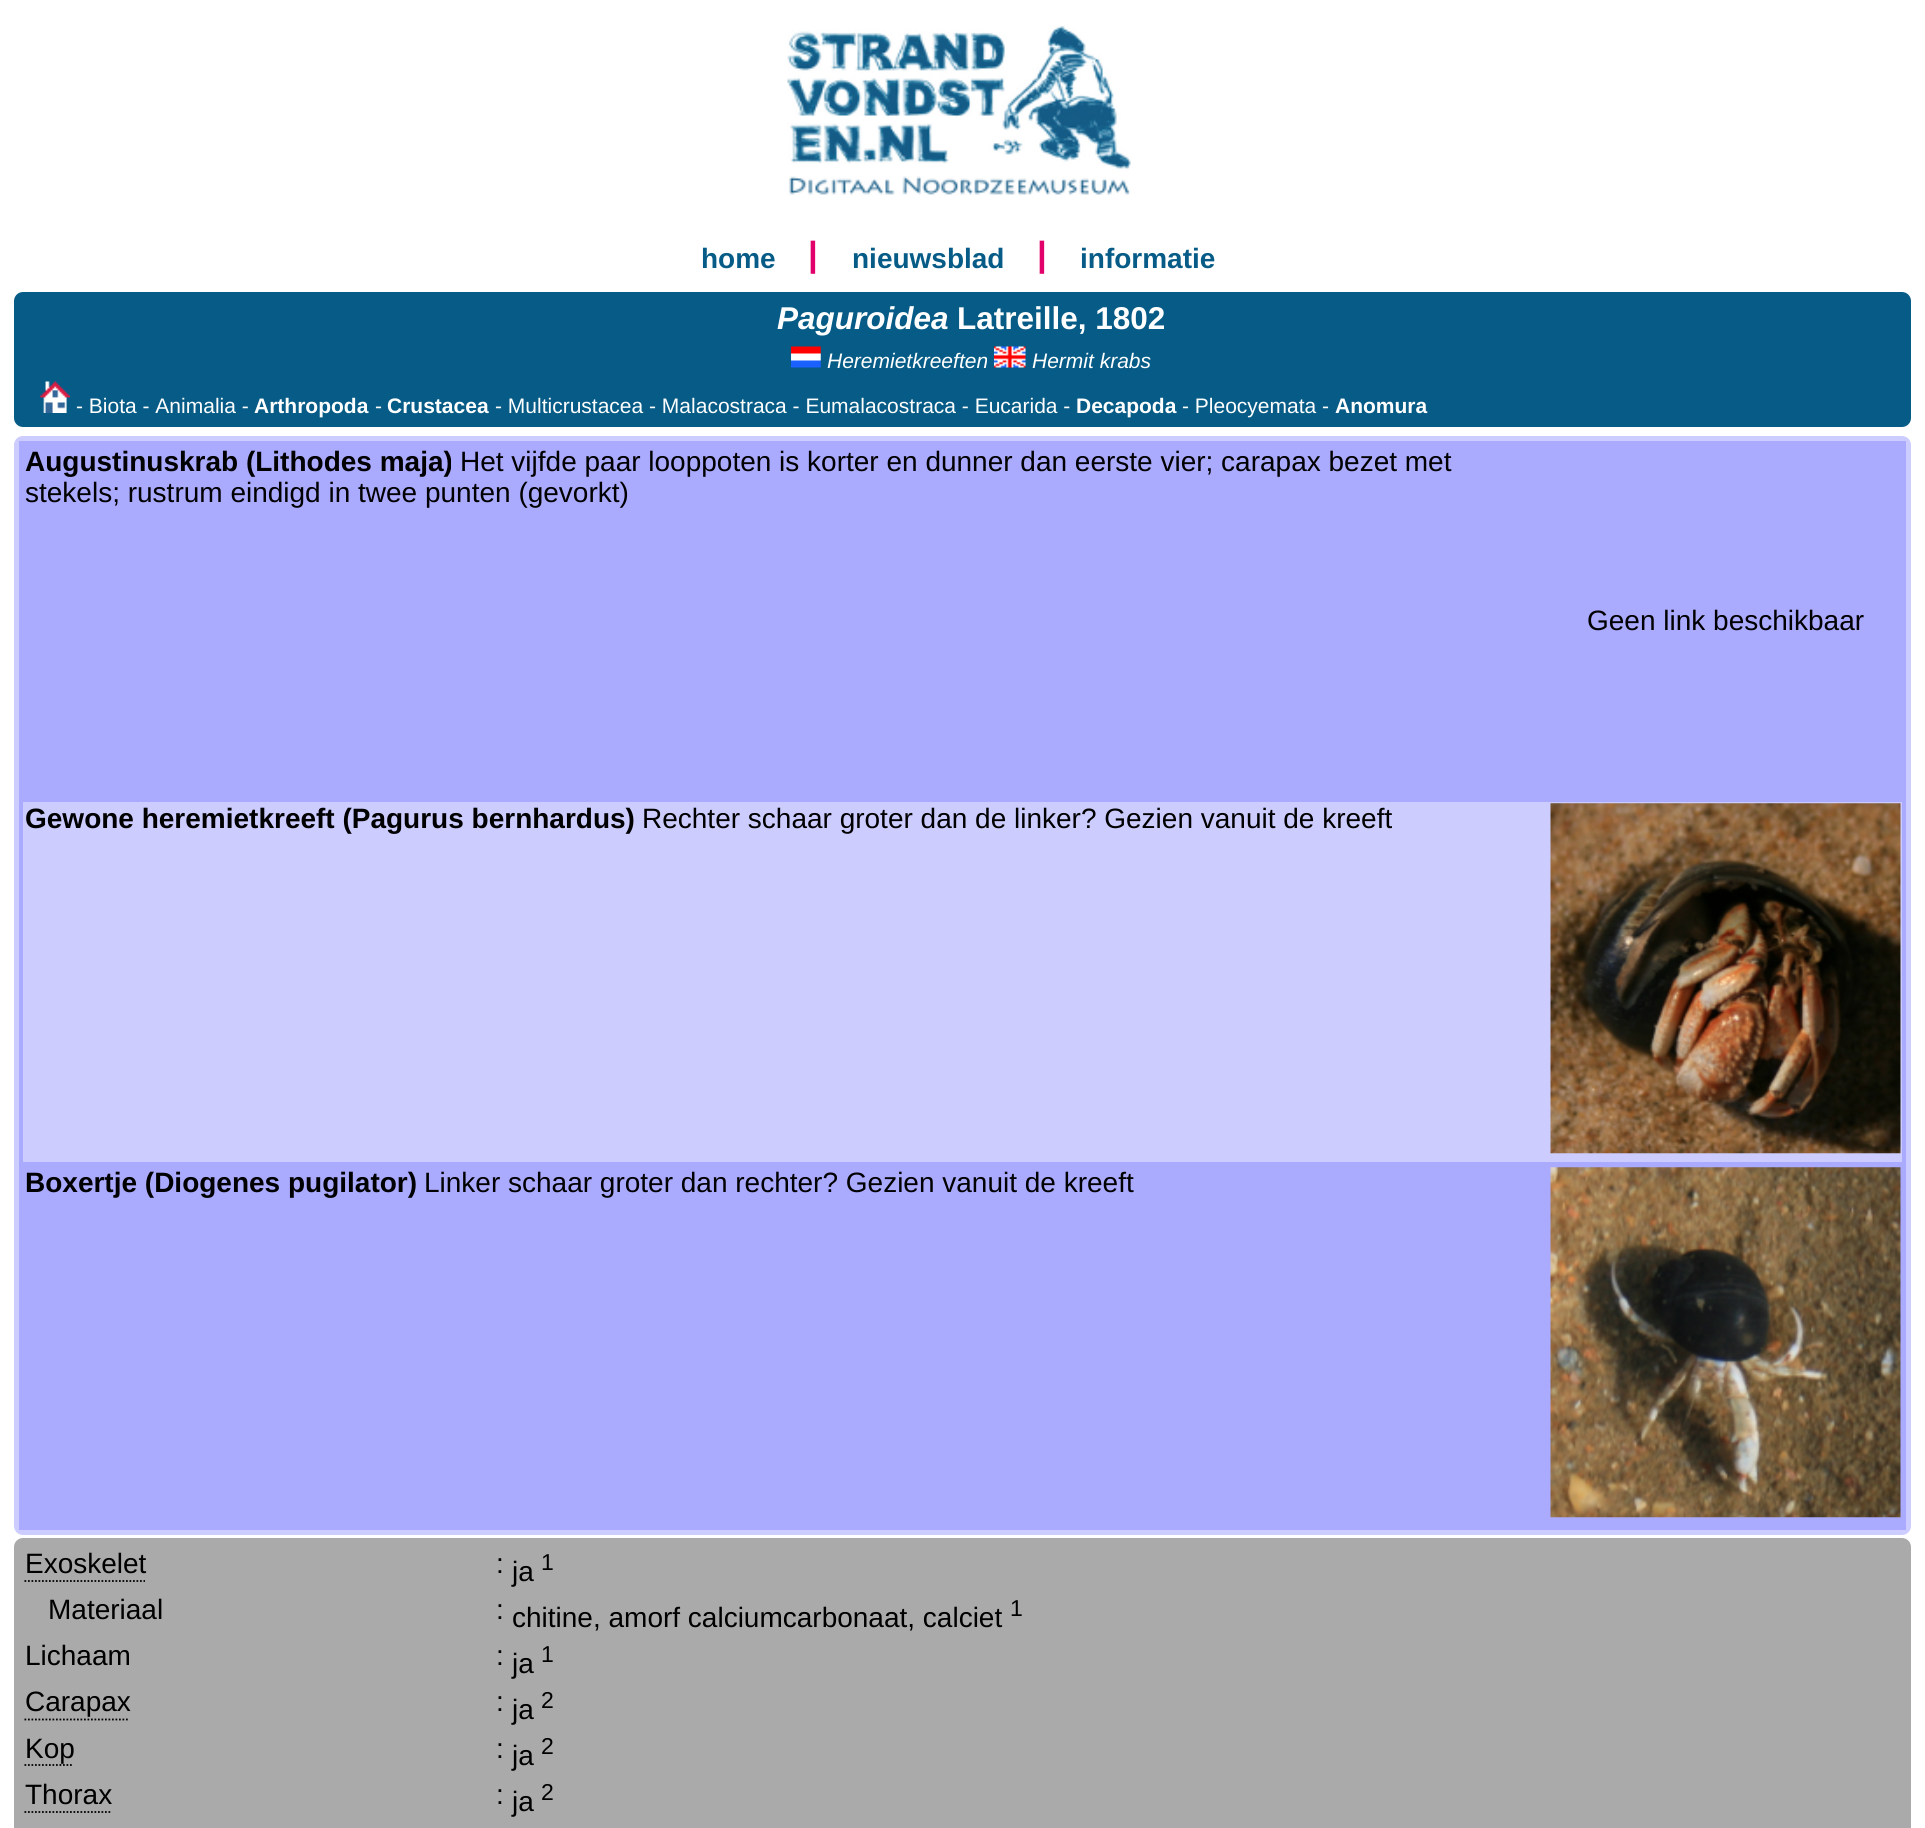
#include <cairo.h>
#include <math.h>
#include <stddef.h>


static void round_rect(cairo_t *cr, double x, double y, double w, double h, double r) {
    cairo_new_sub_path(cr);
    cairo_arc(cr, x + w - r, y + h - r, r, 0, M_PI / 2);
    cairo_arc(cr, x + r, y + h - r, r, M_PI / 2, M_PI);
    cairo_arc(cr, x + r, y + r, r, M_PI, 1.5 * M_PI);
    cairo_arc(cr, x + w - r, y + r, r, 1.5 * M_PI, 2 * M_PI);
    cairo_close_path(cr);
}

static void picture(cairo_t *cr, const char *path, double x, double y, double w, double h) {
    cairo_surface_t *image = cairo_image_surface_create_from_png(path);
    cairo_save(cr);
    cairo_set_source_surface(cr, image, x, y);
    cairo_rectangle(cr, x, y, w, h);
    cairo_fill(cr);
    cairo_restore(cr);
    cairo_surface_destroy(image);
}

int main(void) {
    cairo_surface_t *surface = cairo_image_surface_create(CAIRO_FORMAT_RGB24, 1925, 1828);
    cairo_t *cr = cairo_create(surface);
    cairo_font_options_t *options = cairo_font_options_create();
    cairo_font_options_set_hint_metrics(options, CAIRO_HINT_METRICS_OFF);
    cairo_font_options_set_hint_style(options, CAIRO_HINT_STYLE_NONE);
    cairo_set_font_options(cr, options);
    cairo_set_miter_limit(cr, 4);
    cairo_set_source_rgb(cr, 1, 1, 1);
    cairo_paint(cr);
    picture(cr, "img1.png", 787, 25, 344, 170);
    cairo_select_font_face(cr, "Liberation Sans", CAIRO_FONT_SLANT_NORMAL, CAIRO_FONT_WEIGHT_BOLD);
    cairo_set_font_size(cr, 28);
    cairo_set_source_rgb(cr, 0.027, 0.361, 0.529);
    cairo_move_to(cr, 701, 268);
    cairo_show_text(cr, "home");
    cairo_set_font_size(cr, 35);
    cairo_set_source_rgb(cr, 0.886, 0, 0.416);
    cairo_move_to(cr, 808, 266);
    cairo_show_text(cr, "|");
    cairo_set_font_size(cr, 28);
    cairo_set_source_rgb(cr, 0.027, 0.361, 0.529);
    cairo_move_to(cr, 852, 268);
    cairo_show_text(cr, "nieuwsblad");
    cairo_set_font_size(cr, 35);
    cairo_set_source_rgb(cr, 0.886, 0, 0.416);
    cairo_move_to(cr, 1037, 266);
    cairo_show_text(cr, "|");
    cairo_set_font_size(cr, 28);
    cairo_set_source_rgb(cr, 0.027, 0.361, 0.529);
    cairo_move_to(cr, 1080, 268);
    cairo_show_text(cr, "informatie");
    round_rect(cr, 14, 292, 1897, 135, 9);
    cairo_fill(cr);
    cairo_select_font_face(cr, "Liberation Sans", CAIRO_FONT_SLANT_ITALIC, CAIRO_FONT_WEIGHT_BOLD);
    cairo_set_font_size(cr, 31.5);
    cairo_set_source_rgb(cr, 1, 1, 1);
    cairo_move_to(cr, 777, 329);
    cairo_show_text(cr, "Paguroidea");
    cairo_select_font_face(cr, "Liberation Sans", CAIRO_FONT_SLANT_NORMAL, CAIRO_FONT_WEIGHT_BOLD);
    cairo_move_to(cr, 957, 329);
    cairo_show_text(cr, "Latreille, 1802");
    picture(cr, "img2.png", 791, 346, 30, 22);
    cairo_select_font_face(cr, "Liberation Sans", CAIRO_FONT_SLANT_ITALIC, CAIRO_FONT_WEIGHT_NORMAL);
    cairo_set_font_size(cr, 21);
    cairo_move_to(cr, 827, 368);
    cairo_show_text(cr, "Heremietkreeften");
    picture(cr, "img3.png", 994, 346, 32, 22);
    cairo_move_to(cr, 1032, 368);
    cairo_show_text(cr, "Hermit krabs");
    picture(cr, "img4.png", 40, 381, 30, 32);
    cairo_select_font_face(cr, "Liberation Sans", CAIRO_FONT_SLANT_NORMAL, CAIRO_FONT_WEIGHT_NORMAL);
    cairo_move_to(cr, 76, 413);
    cairo_show_text(cr, "- Biota - Animalia -");
    cairo_select_font_face(cr, "Liberation Sans", CAIRO_FONT_SLANT_NORMAL, CAIRO_FONT_WEIGHT_BOLD);
    cairo_move_to(cr, 254, 413);
    cairo_show_text(cr, "Arthropoda");
    cairo_select_font_face(cr, "Liberation Sans", CAIRO_FONT_SLANT_NORMAL, CAIRO_FONT_WEIGHT_NORMAL);
    cairo_move_to(cr, 375, 413);
    cairo_show_text(cr, "-");
    cairo_select_font_face(cr, "Liberation Sans", CAIRO_FONT_SLANT_NORMAL, CAIRO_FONT_WEIGHT_BOLD);
    cairo_move_to(cr, 387, 413);
    cairo_show_text(cr, "Crustacea");
    cairo_select_font_face(cr, "Liberation Sans", CAIRO_FONT_SLANT_NORMAL, CAIRO_FONT_WEIGHT_NORMAL);
    cairo_move_to(cr, 495, 413);
    cairo_show_text(cr, "- Multicrustacea - Malacostraca - Eumalacostraca - Eucarida -");
    cairo_select_font_face(cr, "Liberation Sans", CAIRO_FONT_SLANT_NORMAL, CAIRO_FONT_WEIGHT_BOLD);
    cairo_move_to(cr, 1076, 413);
    cairo_show_text(cr, "Decapoda");
    cairo_select_font_face(cr, "Liberation Sans", CAIRO_FONT_SLANT_NORMAL, CAIRO_FONT_WEIGHT_NORMAL);
    cairo_move_to(cr, 1182, 413);
    cairo_show_text(cr, "- Pleocyemata -");
    cairo_select_font_face(cr, "Liberation Sans", CAIRO_FONT_SLANT_NORMAL, CAIRO_FONT_WEIGHT_BOLD);
    cairo_move_to(cr, 1335, 413);
    cairo_show_text(cr, "Anomura");
    cairo_set_source_rgb(cr, 0.8, 0.8, 1);
    round_rect(cr, 14, 436, 1897, 1099, 9);
    cairo_fill(cr);
    cairo_set_source_rgb(cr, 0.667, 0.667, 1);
    cairo_rectangle(cr, 19, 441, 1887, 1089);
    cairo_fill(cr);
    cairo_set_font_size(cr, 28);
    cairo_set_source_rgb(cr, 0, 0, 0);
    cairo_move_to(cr, 25, 471);
    cairo_show_text(cr, "Augustinuskrab (Lithodes maja)");
    cairo_select_font_face(cr, "Liberation Sans", CAIRO_FONT_SLANT_NORMAL, CAIRO_FONT_WEIGHT_NORMAL);
    cairo_move_to(cr, 460, 471);
    cairo_show_text(cr, "Het vijfde paar looppoten is korter en dunner dan eerste vier; carapax bezet met");
    cairo_move_to(cr, 25, 502);
    cairo_show_text(cr, "stekels; rustrum eindigd in twee punten (gevorkt)");
    cairo_move_to(cr, 1587, 630);
    cairo_show_text(cr, "Geen link beschikbaar");
    cairo_set_source_rgb(cr, 0.8, 0.8, 1);
    cairo_rectangle(cr, 23, 802, 1879, 360);
    cairo_fill(cr);
    cairo_select_font_face(cr, "Liberation Sans", CAIRO_FONT_SLANT_NORMAL, CAIRO_FONT_WEIGHT_BOLD);
    cairo_set_source_rgb(cr, 0, 0, 0);
    cairo_move_to(cr, 25, 828);
    cairo_show_text(cr, "Gewone heremietkreeft (Pagurus bernhardus)");
    cairo_select_font_face(cr, "Liberation Sans", CAIRO_FONT_SLANT_NORMAL, CAIRO_FONT_WEIGHT_NORMAL);
    cairo_move_to(cr, 642, 828);
    cairo_show_text(cr, "Rechter schaar groter dan de linker? Gezien vanuit de kreeft");
    picture(cr, "img5.png", 1550, 803, 351, 351);
    cairo_select_font_face(cr, "Liberation Sans", CAIRO_FONT_SLANT_NORMAL, CAIRO_FONT_WEIGHT_BOLD);
    cairo_move_to(cr, 25, 1192);
    cairo_show_text(cr, "Boxertje (Diogenes pugilator)");
    cairo_select_font_face(cr, "Liberation Sans", CAIRO_FONT_SLANT_NORMAL, CAIRO_FONT_WEIGHT_NORMAL);
    cairo_move_to(cr, 424, 1192);
    cairo_show_text(cr, "Linker schaar groter dan rechter? Gezien vanuit de kreeft");
    picture(cr, "img6.png", 1550, 1167, 351, 351);
    cairo_set_source_rgb(cr, 0.667, 0.667, 0.667);
    round_rect(cr, 14, 1538, 1897, 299, 9);
    cairo_fill(cr);
    cairo_new_path(cr);
    cairo_move_to(cr, 24.5, 1581);
    cairo_line_to(cr, 145, 1581);
    cairo_set_source_rgb(cr, 0, 0, 0);
    cairo_set_line_width(cr, 1.8);
    cairo_set_dash(cr, (double[]){1.75, 1.75}, 2, 0);
    cairo_stroke(cr);
    cairo_move_to(cr, 25, 1573);
    cairo_show_text(cr, "Exoskelet");
    cairo_move_to(cr, 496, 1573);
    cairo_show_text(cr, ":");
    cairo_move_to(cr, 512, 1581);
    cairo_show_text(cr, "ja");
    cairo_set_font_size(cr, 23);
    cairo_move_to(cr, 541, 1570);
    cairo_show_text(cr, "1");
    cairo_set_font_size(cr, 28);
    cairo_move_to(cr, 48, 1619);
    cairo_show_text(cr, "Materiaal");
    cairo_move_to(cr, 496, 1619);
    cairo_show_text(cr, ":");
    cairo_move_to(cr, 512, 1627);
    cairo_show_text(cr, "chitine, amorf calciumcarbonaat, calciet");
    cairo_set_font_size(cr, 23);
    cairo_move_to(cr, 1010, 1616);
    cairo_show_text(cr, "1");
    cairo_set_font_size(cr, 28);
    cairo_move_to(cr, 25, 1665);
    cairo_show_text(cr, "Lichaam");
    cairo_move_to(cr, 496, 1665);
    cairo_show_text(cr, ":");
    cairo_move_to(cr, 512, 1673);
    cairo_show_text(cr, "ja");
    cairo_set_font_size(cr, 23);
    cairo_move_to(cr, 541, 1662);
    cairo_show_text(cr, "1");
    cairo_new_path(cr);
    cairo_move_to(cr, 24.5, 1719.5);
    cairo_line_to(cr, 129.5, 1719.5);
    cairo_stroke(cr);
    cairo_set_font_size(cr, 28);
    cairo_move_to(cr, 25, 1711);
    cairo_show_text(cr, "Carapax");
    cairo_move_to(cr, 496, 1711);
    cairo_show_text(cr, ":");
    cairo_move_to(cr, 512, 1719);
    cairo_show_text(cr, "ja");
    cairo_set_font_size(cr, 23);
    cairo_move_to(cr, 541, 1708);
    cairo_show_text(cr, "2");
    cairo_new_path(cr);
    cairo_move_to(cr, 24.5, 1765);
    cairo_line_to(cr, 73.5, 1765);
    cairo_stroke(cr);
    cairo_set_font_size(cr, 28);
    cairo_move_to(cr, 25, 1758);
    cairo_show_text(cr, "Kop");
    cairo_move_to(cr, 496, 1758);
    cairo_show_text(cr, ":");
    cairo_move_to(cr, 512, 1765);
    cairo_show_text(cr, "ja");
    cairo_set_font_size(cr, 23);
    cairo_move_to(cr, 541, 1754);
    cairo_show_text(cr, "2");
    cairo_new_path(cr);
    cairo_move_to(cr, 24.5, 1812);
    cairo_line_to(cr, 112, 1812);
    cairo_stroke(cr);
    cairo_set_font_size(cr, 28);
    cairo_move_to(cr, 25, 1804);
    cairo_show_text(cr, "Thorax");
    cairo_move_to(cr, 496, 1804);
    cairo_show_text(cr, ":");
    cairo_move_to(cr, 512, 1811);
    cairo_show_text(cr, "ja");
    cairo_set_font_size(cr, 23);
    cairo_move_to(cr, 541, 1800);
    cairo_show_text(cr, "2");
    cairo_surface_write_to_png(surface, "page.png");
    cairo_font_options_destroy(options);
    cairo_destroy(cr);
    cairo_surface_destroy(surface);
    return 0;
}
